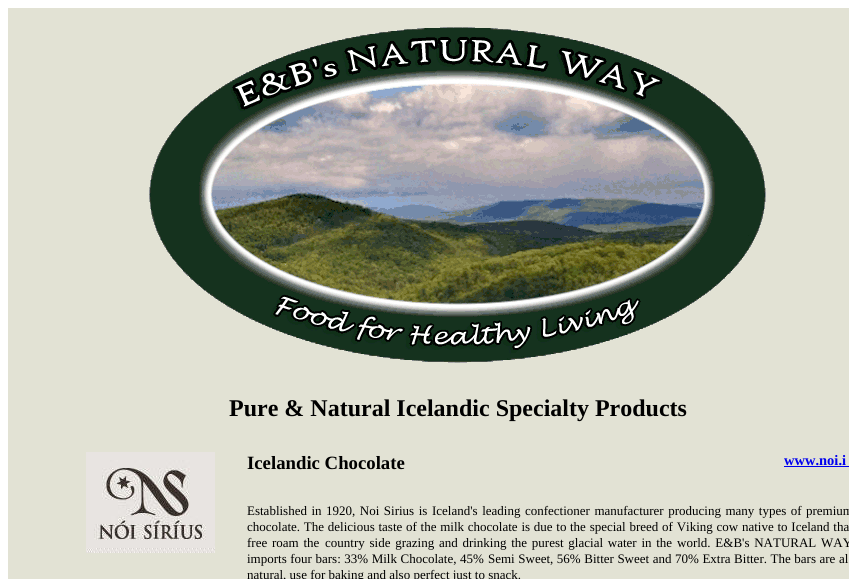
#include <cairo.h>
#include <math.h>
#include <stddef.h>


static void spaced_text(cairo_t *cr, double x, double y, const char *s, double letter, double word) {
    cairo_move_to(cr, x, y);
    while (*s) {
        char ch[5] = {0};
        int n = 0;
        do ch[n++] = *s++; while ((*s & 0xC0) == 0x80);
        cairo_show_text(cr, ch);
        cairo_rel_move_to(cr, letter + word * (*ch == ' '), 0);
    }
}

static void picture(cairo_t *cr, const char *path, double x, double y, double w, double h) {
    cairo_surface_t *image = cairo_image_surface_create_from_png(path);
    cairo_save(cr);
    cairo_set_source_surface(cr, image, x, y);
    cairo_rectangle(cr, x, y, w, h);
    cairo_fill(cr);
    cairo_restore(cr);
    cairo_surface_destroy(image);
}

int main(void) {
    cairo_surface_t *surface = cairo_image_surface_create(CAIRO_FORMAT_RGB24, 849, 579);
    cairo_t *cr = cairo_create(surface);
    cairo_font_options_t *options = cairo_font_options_create();
    cairo_font_options_set_hint_metrics(options, CAIRO_HINT_METRICS_OFF);
    cairo_font_options_set_hint_style(options, CAIRO_HINT_STYLE_NONE);
    cairo_set_font_options(cr, options);
    cairo_set_miter_limit(cr, 4);
    cairo_set_source_rgb(cr, 1, 1, 1);
    cairo_paint(cr);
    cairo_set_source_rgb(cr, 0.886, 0.886, 0.831);
    cairo_rectangle(cr, 8, 8, 841, 571);
    cairo_fill(cr);
    picture(cr, "img1.png", 149, 27, 617, 336);
    cairo_select_font_face(cr, "Liberation Serif", CAIRO_FONT_SLANT_NORMAL, CAIRO_FONT_WEIGHT_BOLD);
    cairo_set_font_size(cr, 24);
    cairo_set_source_rgb(cr, 0, 0, 0);
    cairo_move_to(cr, 229, 416);
    cairo_show_text(cr, "Pure & Natural Icelandic Specialty Products");
    picture(cr, "img2.png", 86, 452, 129, 101);
    cairo_set_font_size(cr, 18.75);
    cairo_move_to(cr, 247, 469);
    cairo_show_text(cr, "Icelandic Chocolate");
    cairo_set_font_size(cr, 14.5);
    cairo_set_source_rgb(cr, 0, 0, 0.933);
    cairo_move_to(cr, 784, 465);
    cairo_show_text(cr, "www.noi.i");
    cairo_rectangle(cr, 784, 466, 65, 1);
    cairo_fill(cr);
    cairo_select_font_face(cr, "Liberation Serif", CAIRO_FONT_SLANT_NORMAL, CAIRO_FONT_WEIGHT_NORMAL);
    cairo_set_font_size(cr, 13);
    cairo_set_source_rgb(cr, 0, 0, 0);
    spaced_text(cr, 247, 515, "Established in 1920, Noi Sirius is", 0, 1.25);
    spaced_text(cr, 432, 515, "Iceland's leading confectioner manufacturer producing many types of", 0, 1.25);
    cairo_move_to(cr, 806, 515);
    cairo_show_text(cr, "premium");
    spaced_text(cr, 247, 531, "chocolate. The delicious taste of the milk chocolate is due to", 0, 0.5);
    spaced_text(cr, 570, 531, "the special breed of Viking cow native to Iceland tha", 0, 0.5);
    spaced_text(cr, 247, 547, "free roam the", 0, 1.5);
    spaced_text(cr, 325, 547, "country side grazing and drinking the purest glacial water in the", 0, 1.5);
    spaced_text(cr, 677, 547, "world. E&B's NATURAL WAY", 0, 1.5);
    spaced_text(cr, 247, 563, "imports four bars: 33% Milk Chocolate, 45%", 0, 0.3);
    spaced_text(cr, 488, 563, "Semi Sweet, 56% Bitter Sweet and 70% Extra Bitter. The bars are al", 0, 0.3);
    cairo_move_to(cr, 247, 579);
    cairo_show_text(cr, "natural, use for baking and also perfect just to snack.");
    cairo_surface_write_to_png(surface, "page.png");
    cairo_font_options_destroy(options);
    cairo_destroy(cr);
    cairo_surface_destroy(surface);
    return 0;
}
